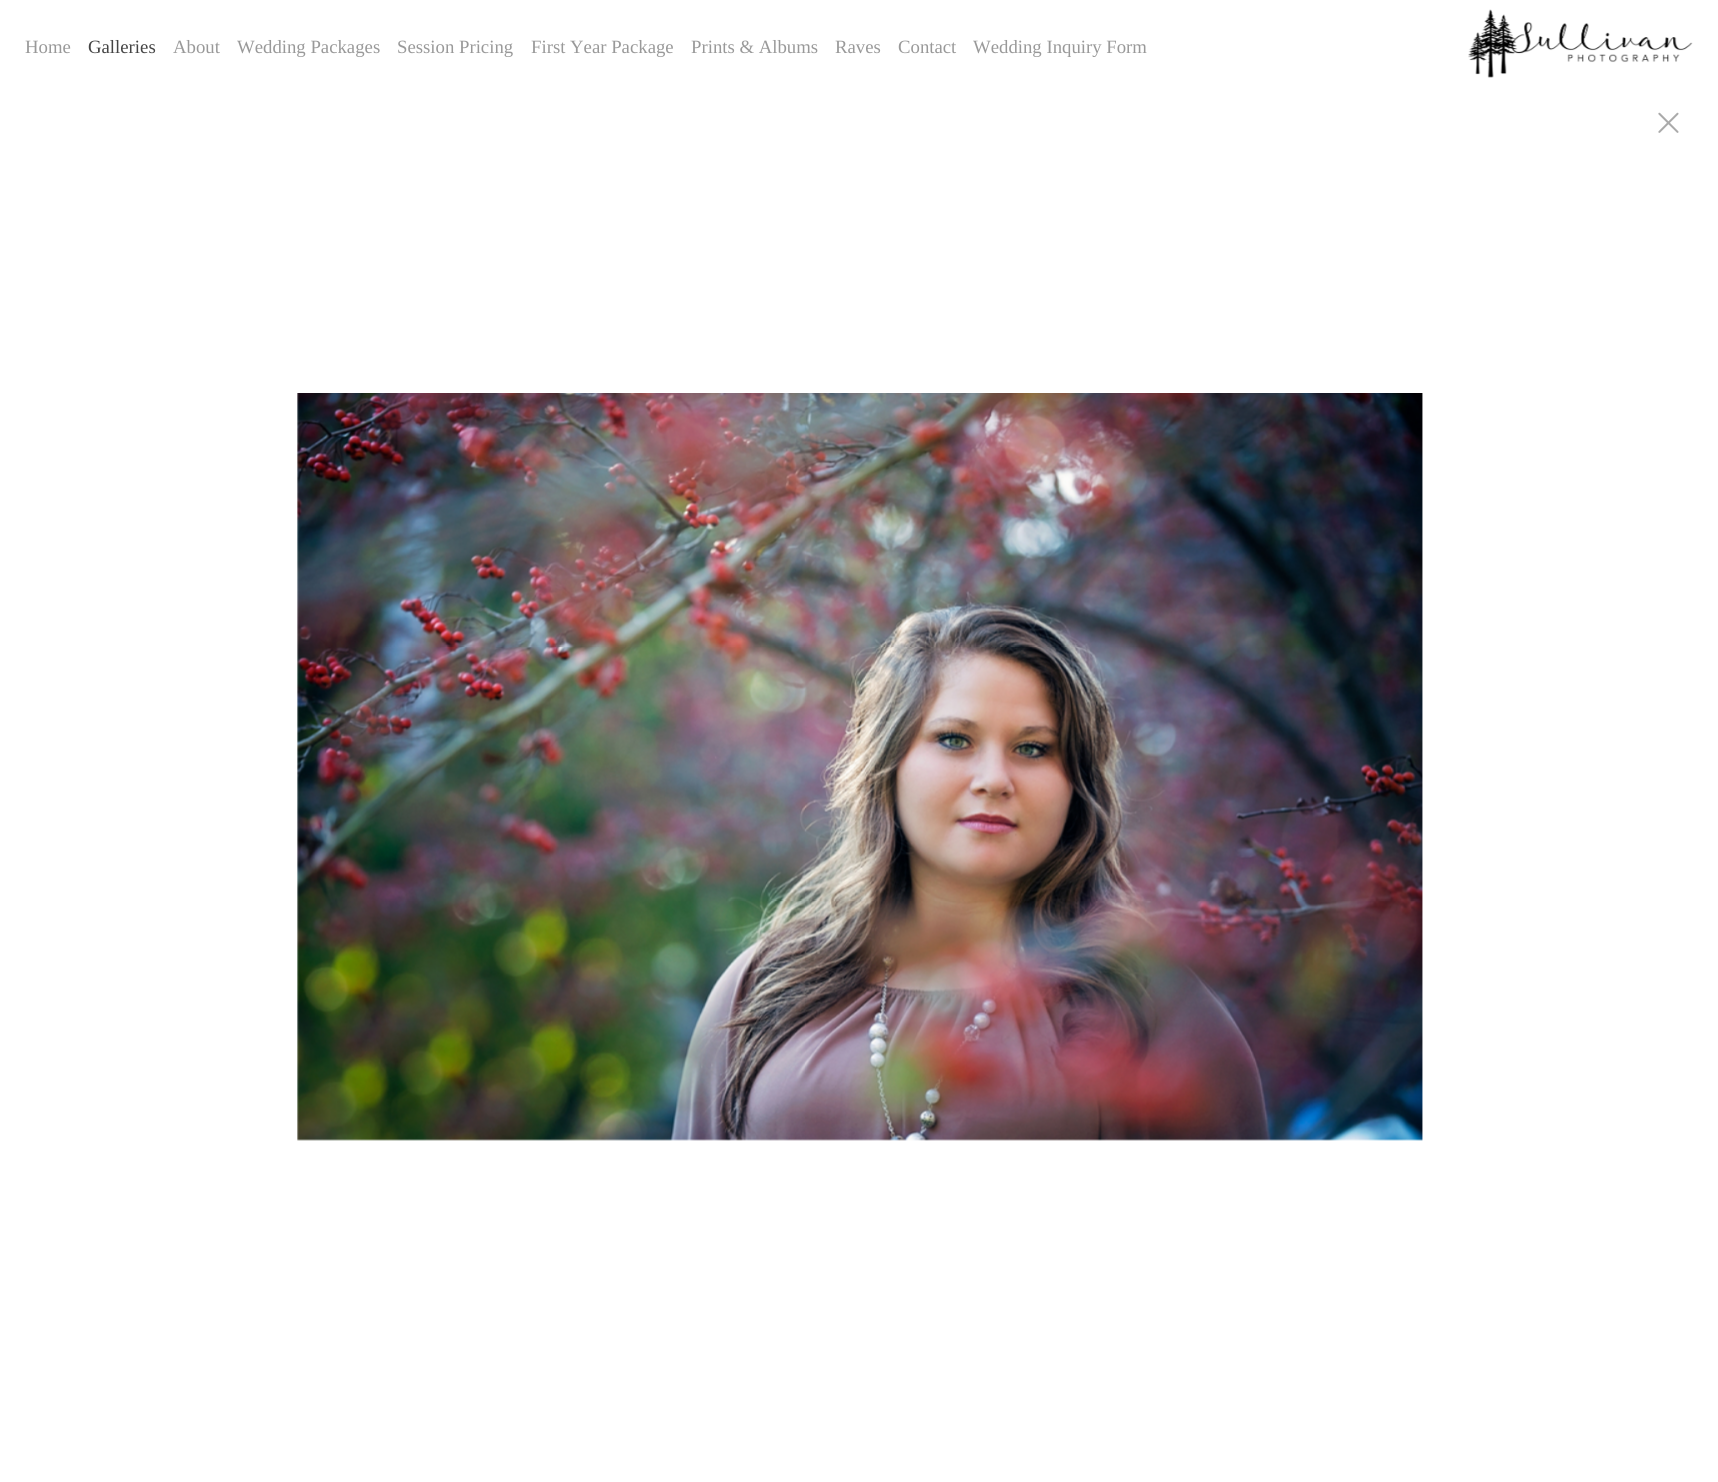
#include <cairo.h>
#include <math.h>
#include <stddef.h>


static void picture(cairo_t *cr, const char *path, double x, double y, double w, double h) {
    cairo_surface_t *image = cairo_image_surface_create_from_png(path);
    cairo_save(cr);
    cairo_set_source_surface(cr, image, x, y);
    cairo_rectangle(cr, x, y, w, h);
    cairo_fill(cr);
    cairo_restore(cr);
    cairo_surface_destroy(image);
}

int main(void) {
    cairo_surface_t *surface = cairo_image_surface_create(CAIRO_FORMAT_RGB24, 1718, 1482);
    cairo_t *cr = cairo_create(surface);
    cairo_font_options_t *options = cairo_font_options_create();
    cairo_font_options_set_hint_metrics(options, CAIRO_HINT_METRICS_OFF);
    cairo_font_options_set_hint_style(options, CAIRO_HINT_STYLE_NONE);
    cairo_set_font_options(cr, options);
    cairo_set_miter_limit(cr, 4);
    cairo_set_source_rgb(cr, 1, 1, 1);
    cairo_paint(cr);
    cairo_select_font_face(cr, "Liberation Serif", CAIRO_FONT_SLANT_NORMAL, CAIRO_FONT_WEIGHT_NORMAL);
    cairo_set_font_size(cr, 18.75);
    cairo_set_source_rgb(cr, 0.6, 0.6, 0.6);
    cairo_move_to(cr, 25, 53);
    cairo_show_text(cr, "Home");
    cairo_set_source_rgb(cr, 0.267, 0.267, 0.267);
    cairo_move_to(cr, 88, 53);
    cairo_show_text(cr, "Galleries");
    cairo_set_source_rgb(cr, 0.6, 0.6, 0.6);
    cairo_move_to(cr, 173, 53);
    cairo_show_text(cr, "About");
    cairo_move_to(cr, 237, 53);
    cairo_show_text(cr, "Wedding Packages");
    cairo_move_to(cr, 397, 53);
    cairo_show_text(cr, "Session Pricing");
    cairo_move_to(cr, 531, 53);
    cairo_show_text(cr, "First Year Package");
    cairo_move_to(cr, 691, 53);
    cairo_show_text(cr, "Prints & Albums");
    cairo_move_to(cr, 835, 53);
    cairo_show_text(cr, "Raves");
    cairo_move_to(cr, 898, 53);
    cairo_show_text(cr, "Contact");
    cairo_move_to(cr, 973, 53);
    cairo_show_text(cr, "Wedding Inquiry Form");
    picture(cr, "img1.png", 1468, 9, 225, 69);
    picture(cr, "img2.png", 1658, 112, 21, 21);
    picture(cr, "img3.png", 297, 393, 1126, 748);
    cairo_surface_write_to_png(surface, "page.png");
    cairo_font_options_destroy(options);
    cairo_destroy(cr);
    cairo_surface_destroy(surface);
    return 0;
}
